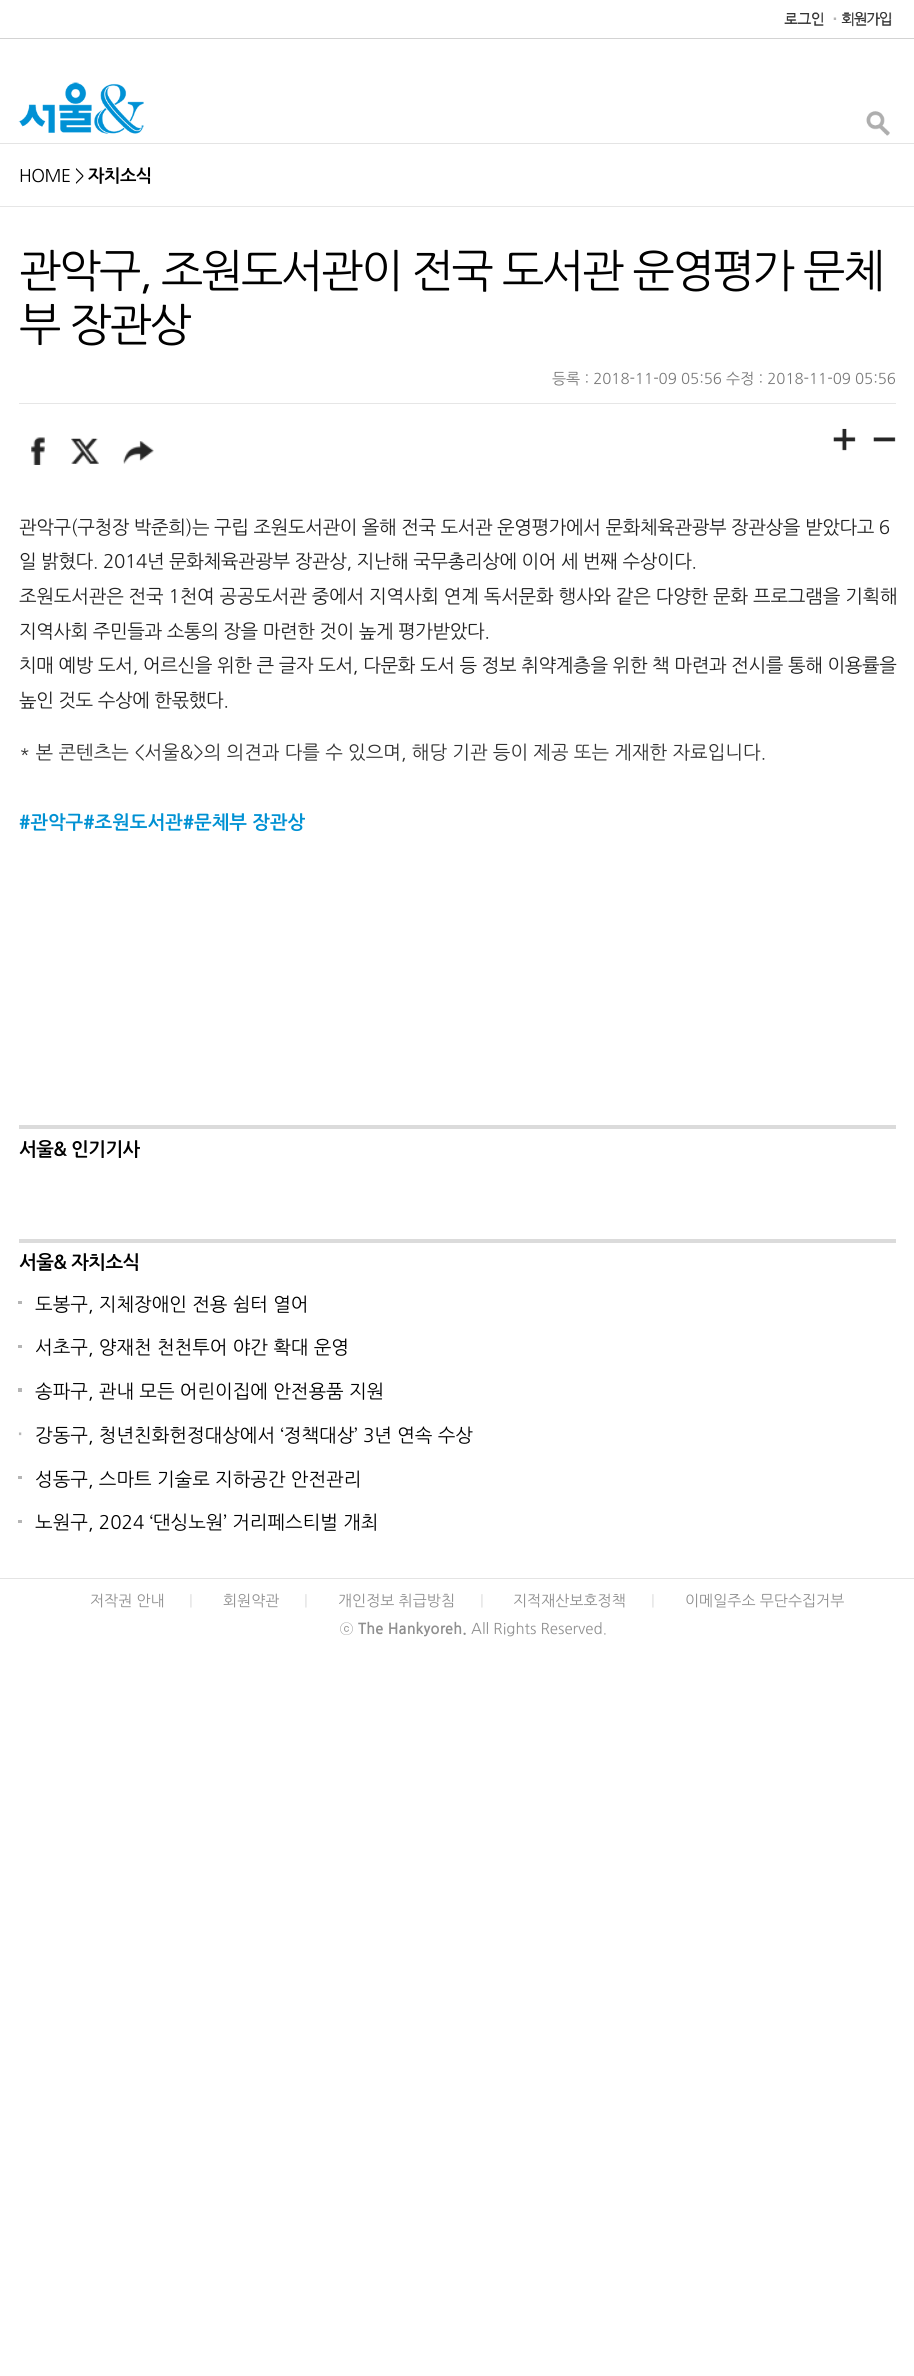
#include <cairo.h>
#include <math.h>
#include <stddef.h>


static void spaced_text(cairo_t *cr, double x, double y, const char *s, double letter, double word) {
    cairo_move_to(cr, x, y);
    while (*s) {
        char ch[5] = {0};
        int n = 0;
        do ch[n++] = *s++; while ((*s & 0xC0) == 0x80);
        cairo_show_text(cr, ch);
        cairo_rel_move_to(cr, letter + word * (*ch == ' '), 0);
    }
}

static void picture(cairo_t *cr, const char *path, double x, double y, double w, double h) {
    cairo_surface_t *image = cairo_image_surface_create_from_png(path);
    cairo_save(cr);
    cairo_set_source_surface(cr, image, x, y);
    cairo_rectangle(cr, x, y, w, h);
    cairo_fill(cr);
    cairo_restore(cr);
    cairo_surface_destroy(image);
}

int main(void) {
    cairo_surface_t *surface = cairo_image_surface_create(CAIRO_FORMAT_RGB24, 914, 2376);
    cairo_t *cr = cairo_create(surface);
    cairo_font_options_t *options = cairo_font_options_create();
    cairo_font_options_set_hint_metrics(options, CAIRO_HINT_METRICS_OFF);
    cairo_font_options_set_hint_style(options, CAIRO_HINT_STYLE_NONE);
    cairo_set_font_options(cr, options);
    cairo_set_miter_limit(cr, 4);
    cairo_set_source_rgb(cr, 1, 1, 1);
    cairo_paint(cr);
    cairo_set_source_rgb(cr, 0.827, 0.827, 0.827);
    cairo_rectangle(cr, 0, 38, 914, 1);
    cairo_fill(cr);
    picture(cr, "img1.png", 784, 12, 40, 14);
    picture(cr, "img2.png", 833, 12, 59, 15);
    cairo_set_source_rgb(cr, 0.894, 0.894, 0.894);
    cairo_rectangle(cr, 0, 143, 914, 1);
    cairo_fill(cr);
    picture(cr, "img3.png", 18, 82, 126, 52);
    picture(cr, "img4.png", 866, 111, 24, 25);
    cairo_set_source_rgb(cr, 0.902, 0.902, 0.902);
    cairo_rectangle(cr, 0, 206, 914, 1);
    cairo_fill(cr);
    cairo_select_font_face(cr, "NanumGothic", CAIRO_FONT_SLANT_NORMAL, CAIRO_FONT_WEIGHT_NORMAL);
    cairo_set_font_size(cr, 17.5);
    cairo_set_source_rgb(cr, 0, 0, 0);
    spaced_text(cr, 19, 182, "HOME >", -0.5, 0);
    cairo_select_font_face(cr, "NanumGothic", CAIRO_FONT_SLANT_NORMAL, CAIRO_FONT_WEIGHT_BOLD);
    spaced_text(cr, 88, 182, "자치소식", -0.5, 0);
    cairo_set_source_rgb(cr, 0.902, 0.902, 0.902);
    cairo_rectangle(cr, 19, 403, 877, 1);
    cairo_fill(cr);
    cairo_select_font_face(cr, "NanumGothic", CAIRO_FONT_SLANT_NORMAL, CAIRO_FONT_WEIGHT_NORMAL);
    cairo_set_font_size(cr, 45);
    cairo_set_source_rgb(cr, 0, 0, 0);
    spaced_text(cr, 19, 287, "관악구, 조원도서관이 전국 도서관 운영평가 문체", -2.25, 0);
    spaced_text(cr, 19, 341, "부 장관상", -2.25, 0);
    cairo_set_font_size(cr, 15);
    cairo_set_source_rgb(cr, 0.467, 0.467, 0.467);
    cairo_move_to(cr, 552, 384);
    cairo_show_text(cr, "등록 : 2018-11-09 05:56 수정 : 2018-11-09 05:56");
    picture(cr, "img5.png", 31, 437, 14, 28);
    picture(cr, "img6.png", 71, 438, 28, 26);
    picture(cr, "img7.png", 123, 441, 31, 23);
    picture(cr, "img8.png", 833, 428, 23, 23);
    picture(cr, "img9.png", 873, 437, 23, 5);
    cairo_set_font_size(cr, 18.75);
    cairo_set_source_rgb(cr, 0.133, 0.133, 0.133);
    spaced_text(cr, 19, 534, "관악구(구청장 박준희)는 구립 조원도서관이 올해 전국 도서관 운영평가에서 문화체육관광부 장관상을 받았다고 6", -0.38, 0);
    spaced_text(cr, 19, 568, "일 밝혔다. 2014년 문화체육관광부 장관상, 지난해 국무총리상에 이어 세 번째 수상이다.", -0.38, 0);
    spaced_text(cr, 19, 603, "조원도서관은 전국 1천여 공공도서관 중에서 지역사회 연계 독서문화 행사와 같은 다양한 문화 프로그램을 기획해", -0.2, 0);
    spaced_text(cr, 19, 638, "지역사회 주민들과 소통의 장을 마련한 것이 높게 평가받았다.", -0.38, 0);
    spaced_text(cr, 19, 672, "치매 예방 도서, 어르신을 위한 큰 글자 도서, 다문화 도서 등 정보 취약계층을 위한 책 마련과 전시를 통해 이용률을", -0.33, 0);
    spaced_text(cr, 19, 707, "높인 것도 수상에 한몫했다.", -0.38, 0);
    cairo_set_source_rgb(cr, 0.2, 0.2, 0.2);
    cairo_move_to(cr, 19, 759);
    cairo_show_text(cr, "* 본 콘텐츠는 <서울&>의 의견과 다를 수 있으며, 해당 기관 등이 제공 또는 게재한 자료입니다.");
    cairo_select_font_face(cr, "NanumGothic", CAIRO_FONT_SLANT_NORMAL, CAIRO_FONT_WEIGHT_BOLD);
    cairo_set_source_rgb(cr, 0, 0.569, 0.827);
    cairo_move_to(cr, 19, 829);
    cairo_show_text(cr, "#관악구#조원도서관#문체부 장관상");
    cairo_set_source_rgb(cr, 0.859, 0.859, 0.859);
    cairo_rectangle(cr, 19, 1125, 877, 4);
    cairo_fill(cr);
    cairo_set_source_rgb(cr, 0, 0, 0);
    spaced_text(cr, 19, 1156, "서울& 인기기사", -0.5, 0);
    cairo_set_source_rgb(cr, 0.859, 0.859, 0.859);
    cairo_rectangle(cr, 19, 1239, 877, 4);
    cairo_fill(cr);
    cairo_set_source_rgb(cr, 0, 0, 0);
    spaced_text(cr, 19, 1269, "서울& 자치소식", -0.5, 0);
    cairo_set_source_rgb(cr, 0.71, 0.71, 0.71);
    cairo_rectangle(cr, 18, 1301, 4, 3);
    cairo_fill(cr);
    cairo_select_font_face(cr, "NanumGothic", CAIRO_FONT_SLANT_NORMAL, CAIRO_FONT_WEIGHT_NORMAL);
    cairo_set_source_rgb(cr, 0, 0, 0);
    cairo_move_to(cr, 35, 1311);
    cairo_show_text(cr, "도봉구, 지체장애인 전용 쉼터 열어");
    cairo_set_source_rgb(cr, 0.71, 0.71, 0.71);
    cairo_rectangle(cr, 18, 1345, 4, 3);
    cairo_fill(cr);
    cairo_set_source_rgb(cr, 0, 0, 0);
    cairo_move_to(cr, 35, 1354);
    cairo_show_text(cr, "서초구, 양재천 천천투어 야간 확대 운영");
    cairo_set_source_rgb(cr, 0.71, 0.71, 0.71);
    cairo_rectangle(cr, 18, 1388, 4, 4);
    cairo_fill(cr);
    cairo_set_source_rgb(cr, 0, 0, 0);
    cairo_move_to(cr, 35, 1398);
    cairo_show_text(cr, "송파구, 관내 모든 어린이집에 안전용품 지원");
    picture(cr, "img10.png", 18, 1432, 4, 4);
    cairo_move_to(cr, 35, 1442);
    cairo_show_text(cr, "강동구, 청년친화헌정대상에서 ‘정책대상’ 3년 연속 수상");
    cairo_set_source_rgb(cr, 0.71, 0.71, 0.71);
    cairo_rectangle(cr, 18, 1476, 4, 3);
    cairo_fill(cr);
    cairo_set_source_rgb(cr, 0, 0, 0);
    cairo_move_to(cr, 35, 1486);
    cairo_show_text(cr, "성동구, 스마트 기술로 지하공간 안전관리");
    cairo_set_source_rgb(cr, 0.71, 0.71, 0.71);
    cairo_rectangle(cr, 18, 1520, 4, 3);
    cairo_fill(cr);
    cairo_set_source_rgb(cr, 0, 0, 0);
    cairo_move_to(cr, 35, 1529);
    cairo_show_text(cr, "노원구, 2024 ‘댄싱노원’ 거리페스티벌 개최");
    cairo_set_source_rgb(cr, 0.894, 0.894, 0.894);
    cairo_rectangle(cr, 0, 1578, 914, 1);
    cairo_fill(cr);
    cairo_set_font_size(cr, 15);
    cairo_set_source_rgb(cr, 0.561, 0.561, 0.561);
    cairo_move_to(cr, 90, 1606);
    cairo_show_text(cr, "저작권 안내");
    cairo_set_source_rgb(cr, 0.859, 0.859, 0.859);
    cairo_move_to(cr, 189, 1606);
    cairo_show_text(cr, "|");
    cairo_set_source_rgb(cr, 0.561, 0.561, 0.561);
    cairo_move_to(cr, 223, 1606);
    cairo_show_text(cr, "회원약관");
    cairo_set_source_rgb(cr, 0.859, 0.859, 0.859);
    cairo_move_to(cr, 304, 1606);
    cairo_show_text(cr, "|");
    cairo_set_source_rgb(cr, 0.561, 0.561, 0.561);
    cairo_move_to(cr, 338, 1606);
    cairo_show_text(cr, "개인정보 취급방침");
    cairo_set_source_rgb(cr, 0.859, 0.859, 0.859);
    cairo_move_to(cr, 480, 1606);
    cairo_show_text(cr, "|");
    cairo_set_source_rgb(cr, 0.561, 0.561, 0.561);
    cairo_move_to(cr, 513, 1606);
    cairo_show_text(cr, "지적재산보호정책");
    cairo_set_source_rgb(cr, 0.859, 0.859, 0.859);
    cairo_move_to(cr, 651, 1606);
    cairo_show_text(cr, "|");
    cairo_set_source_rgb(cr, 0.561, 0.561, 0.561);
    cairo_move_to(cr, 685, 1606);
    cairo_show_text(cr, "이메일주소 무단수집거부");
    cairo_select_font_face(cr, "Dotum", CAIRO_FONT_SLANT_NORMAL, CAIRO_FONT_WEIGHT_NORMAL);
    cairo_move_to(cr, 339, 1634);
    cairo_show_text(cr, "ⓒ");
    cairo_select_font_face(cr, "NanumGothic", CAIRO_FONT_SLANT_NORMAL, CAIRO_FONT_WEIGHT_BOLD);
    cairo_move_to(cr, 358, 1634);
    cairo_show_text(cr, "The Hankyoreh.");
    cairo_select_font_face(cr, "NanumGothic", CAIRO_FONT_SLANT_NORMAL, CAIRO_FONT_WEIGHT_NORMAL);
    cairo_move_to(cr, 471, 1634);
    cairo_show_text(cr, "All Rights Reserved.");
    cairo_surface_write_to_png(surface, "page.png");
    cairo_font_options_destroy(options);
    cairo_destroy(cr);
    cairo_surface_destroy(surface);
    return 0;
}
